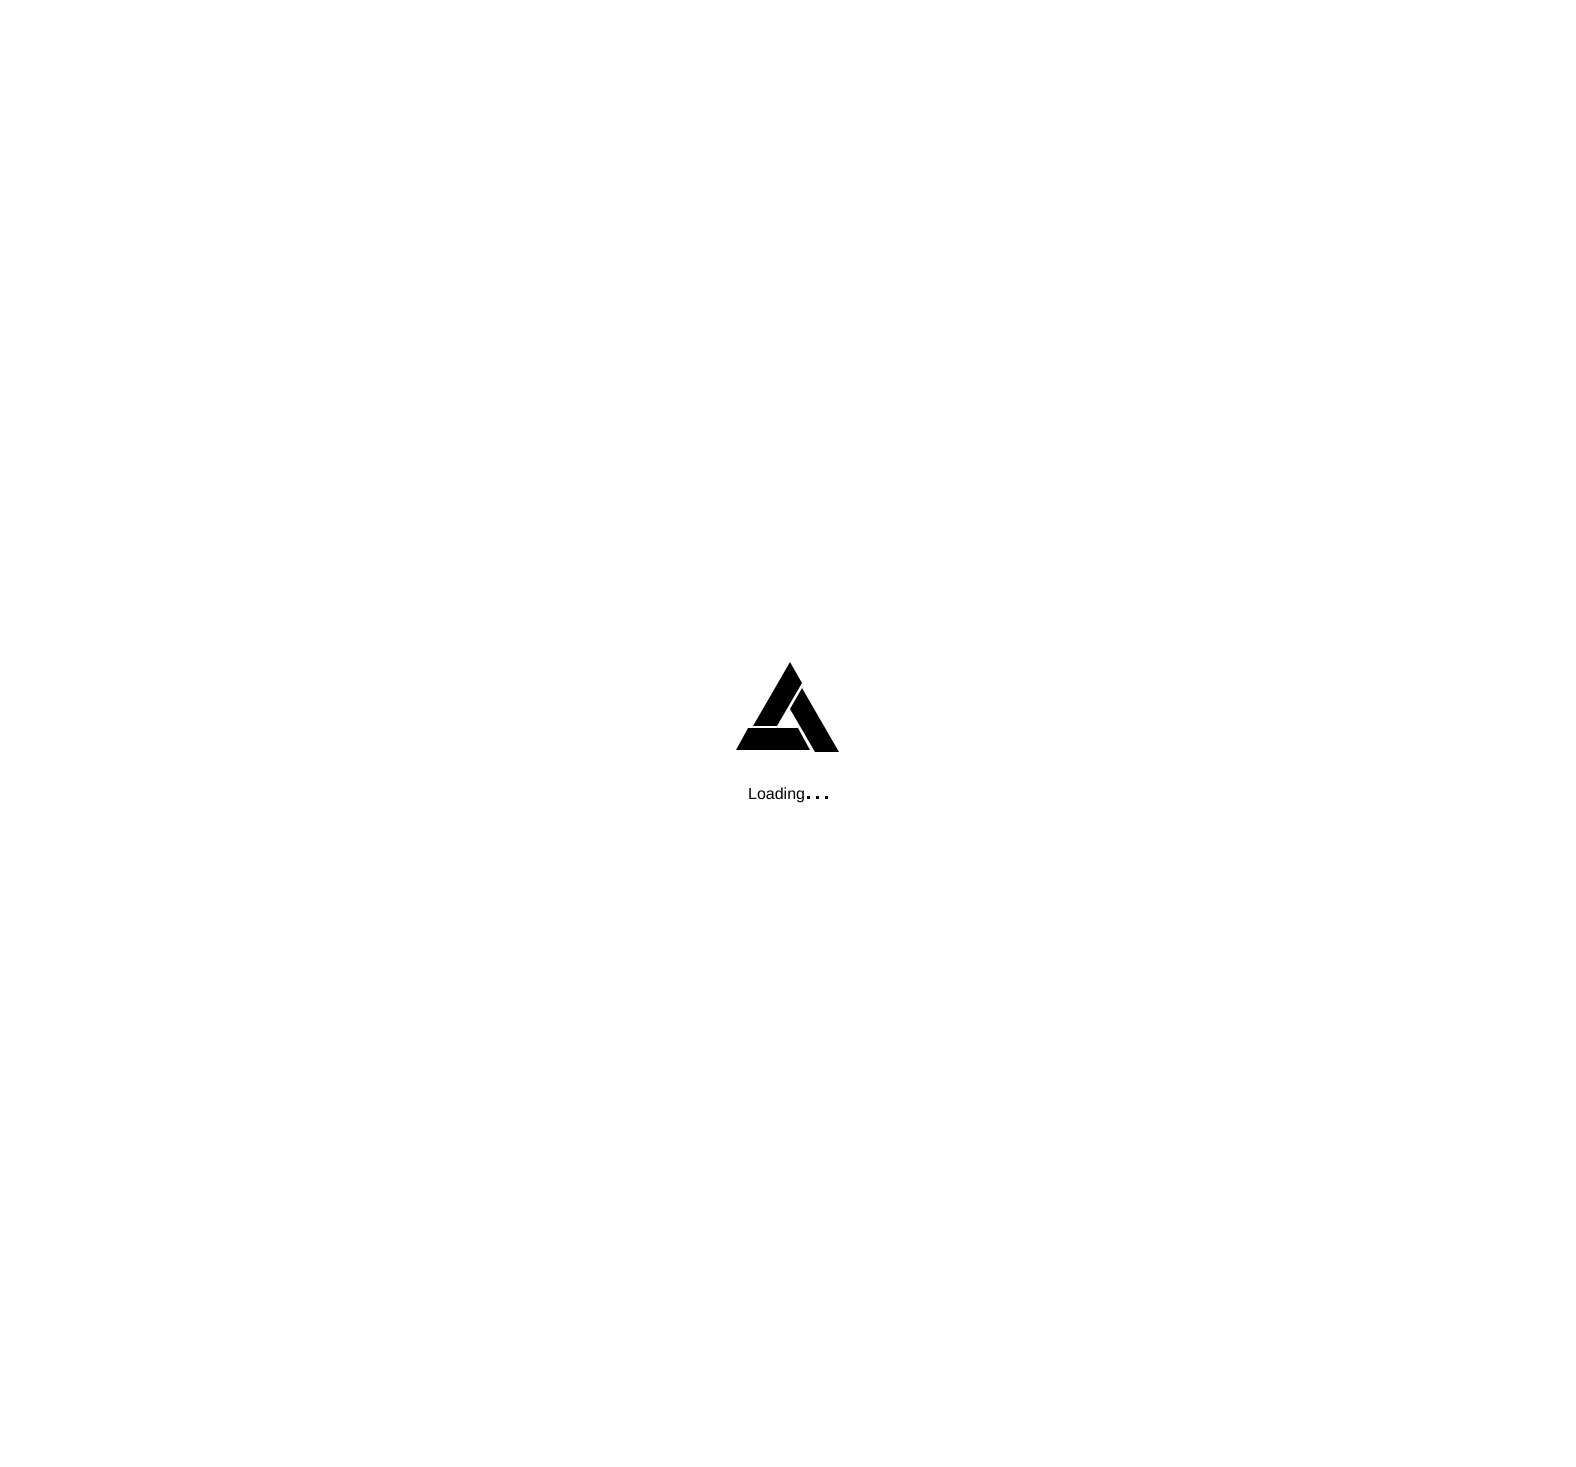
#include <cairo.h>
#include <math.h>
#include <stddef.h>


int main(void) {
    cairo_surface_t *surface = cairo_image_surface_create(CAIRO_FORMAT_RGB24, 1576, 1467);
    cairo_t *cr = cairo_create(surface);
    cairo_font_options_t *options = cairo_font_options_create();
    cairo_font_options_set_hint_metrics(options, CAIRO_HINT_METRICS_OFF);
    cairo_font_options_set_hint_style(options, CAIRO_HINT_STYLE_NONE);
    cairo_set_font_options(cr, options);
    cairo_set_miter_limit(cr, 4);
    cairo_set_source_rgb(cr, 1, 1, 1);
    cairo_paint(cr);
    cairo_set_source_rgb(cr, 0, 0, 0);
    cairo_new_path(cr);
    cairo_move_to(cr, 753, 726);
    cairo_line_to(cr, 790, 662);
    cairo_line_to(cr, 802, 683);
    cairo_line_to(cr, 777, 726);
    cairo_close_path(cr);
    cairo_fill(cr);
    cairo_new_path(cr);
    cairo_move_to(cr, 810, 750);
    cairo_line_to(cr, 736, 750);
    cairo_line_to(cr, 748, 728);
    cairo_line_to(cr, 798, 728);
    cairo_close_path(cr);
    cairo_fill(cr);
    cairo_new_path(cr);
    cairo_move_to(cr, 802, 688);
    cairo_line_to(cr, 839, 752);
    cairo_line_to(cr, 815, 752);
    cairo_line_to(cr, 790, 709);
    cairo_close_path(cr);
    cairo_fill(cr);
    cairo_select_font_face(cr, "Liberation Sans", CAIRO_FONT_SLANT_NORMAL, CAIRO_FONT_WEIGHT_NORMAL);
    cairo_set_font_size(cr, 16);
    cairo_move_to(cr, 748, 799);
    cairo_show_text(cr, "Loading");
    cairo_rectangle(cr, 807, 796, 3, 3);
    cairo_fill(cr);
    cairo_rectangle(cr, 816, 796, 3, 3);
    cairo_fill(cr);
    cairo_rectangle(cr, 825, 796, 3, 3);
    cairo_fill(cr);
    cairo_surface_write_to_png(surface, "page.png");
    cairo_font_options_destroy(options);
    cairo_destroy(cr);
    cairo_surface_destroy(surface);
    return 0;
}
